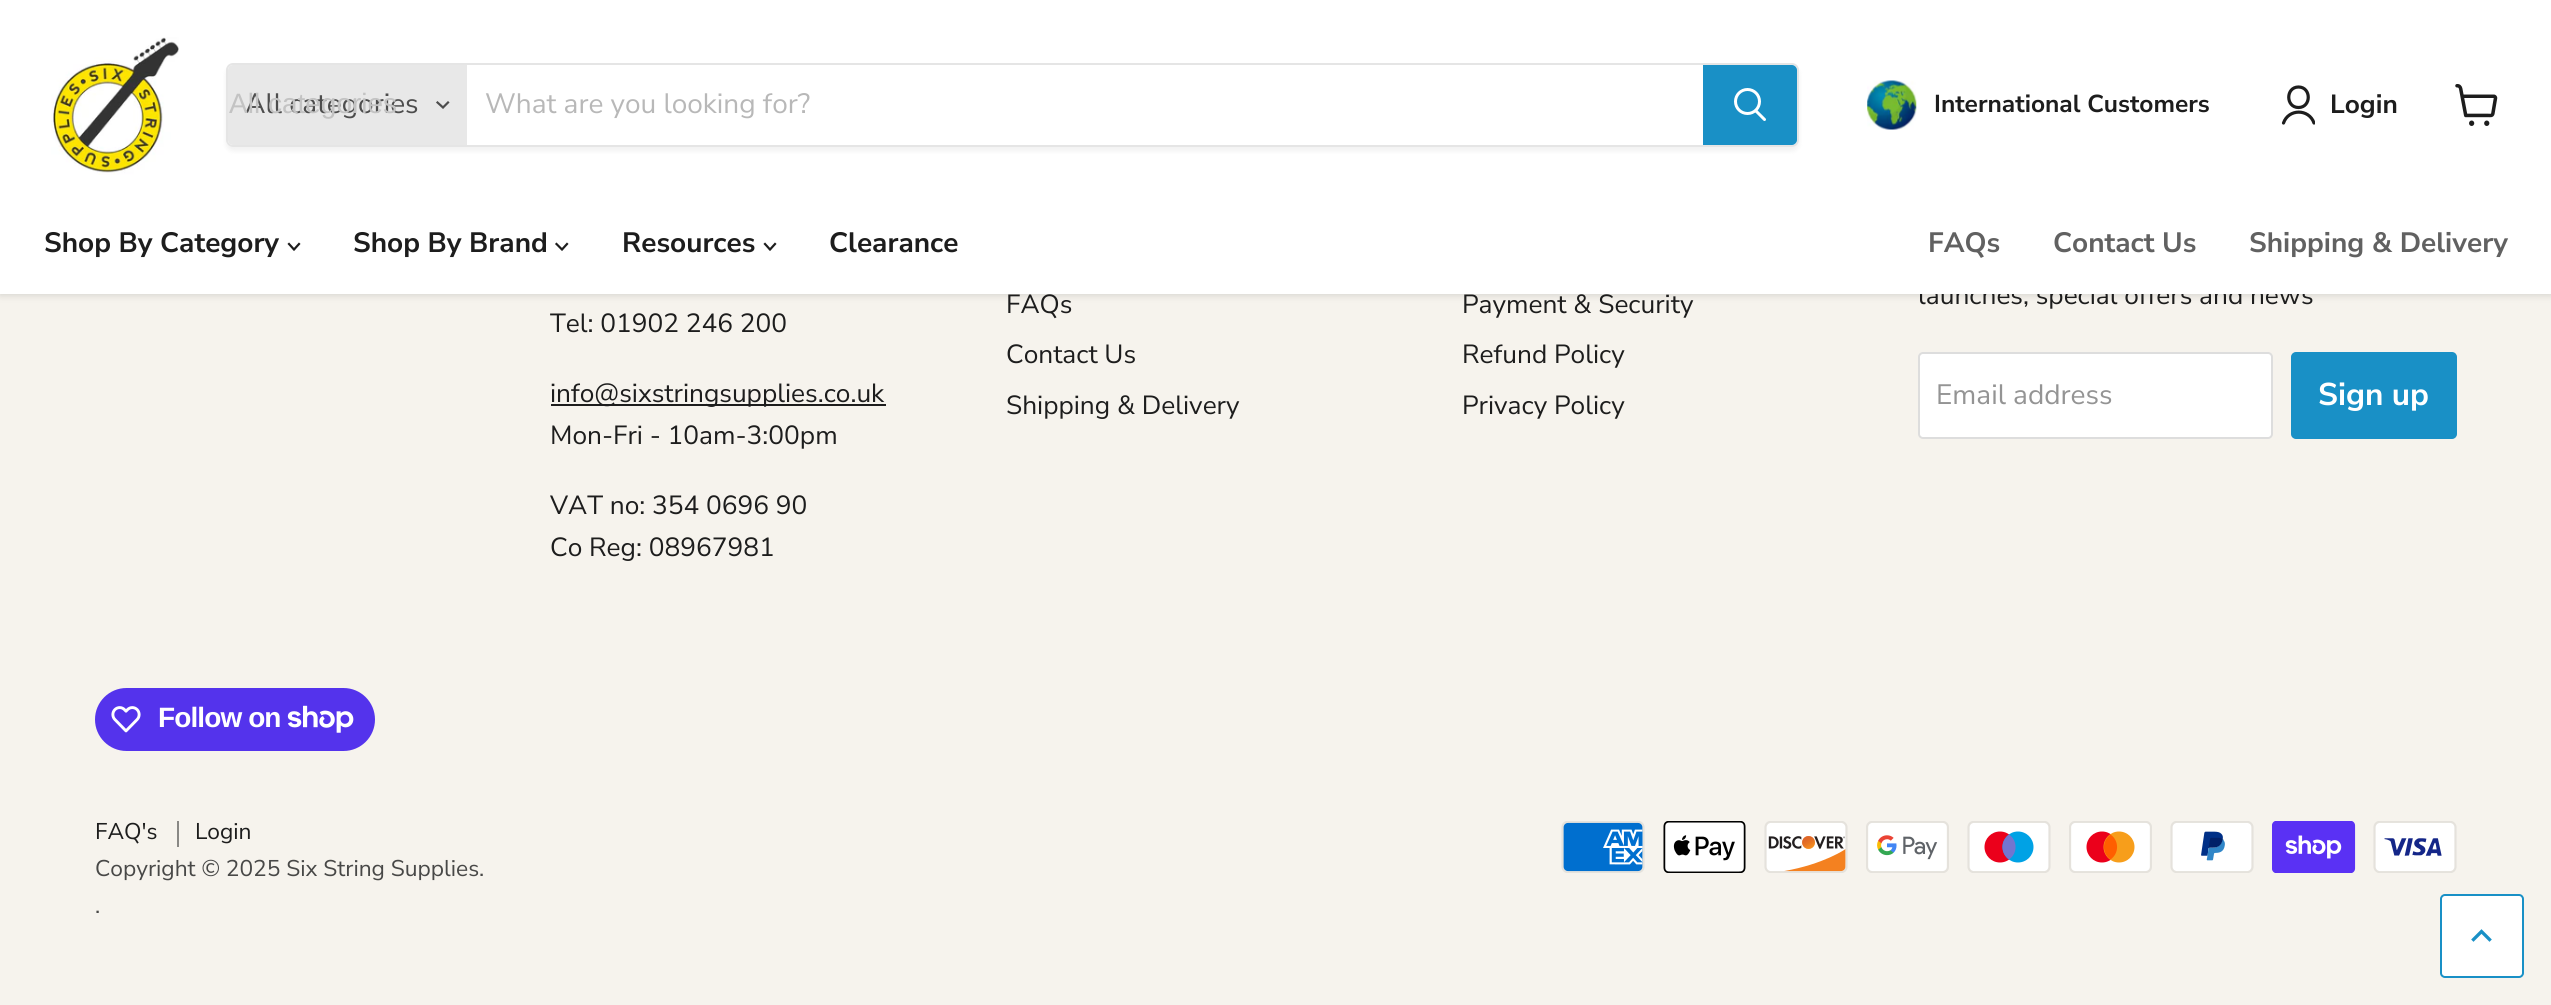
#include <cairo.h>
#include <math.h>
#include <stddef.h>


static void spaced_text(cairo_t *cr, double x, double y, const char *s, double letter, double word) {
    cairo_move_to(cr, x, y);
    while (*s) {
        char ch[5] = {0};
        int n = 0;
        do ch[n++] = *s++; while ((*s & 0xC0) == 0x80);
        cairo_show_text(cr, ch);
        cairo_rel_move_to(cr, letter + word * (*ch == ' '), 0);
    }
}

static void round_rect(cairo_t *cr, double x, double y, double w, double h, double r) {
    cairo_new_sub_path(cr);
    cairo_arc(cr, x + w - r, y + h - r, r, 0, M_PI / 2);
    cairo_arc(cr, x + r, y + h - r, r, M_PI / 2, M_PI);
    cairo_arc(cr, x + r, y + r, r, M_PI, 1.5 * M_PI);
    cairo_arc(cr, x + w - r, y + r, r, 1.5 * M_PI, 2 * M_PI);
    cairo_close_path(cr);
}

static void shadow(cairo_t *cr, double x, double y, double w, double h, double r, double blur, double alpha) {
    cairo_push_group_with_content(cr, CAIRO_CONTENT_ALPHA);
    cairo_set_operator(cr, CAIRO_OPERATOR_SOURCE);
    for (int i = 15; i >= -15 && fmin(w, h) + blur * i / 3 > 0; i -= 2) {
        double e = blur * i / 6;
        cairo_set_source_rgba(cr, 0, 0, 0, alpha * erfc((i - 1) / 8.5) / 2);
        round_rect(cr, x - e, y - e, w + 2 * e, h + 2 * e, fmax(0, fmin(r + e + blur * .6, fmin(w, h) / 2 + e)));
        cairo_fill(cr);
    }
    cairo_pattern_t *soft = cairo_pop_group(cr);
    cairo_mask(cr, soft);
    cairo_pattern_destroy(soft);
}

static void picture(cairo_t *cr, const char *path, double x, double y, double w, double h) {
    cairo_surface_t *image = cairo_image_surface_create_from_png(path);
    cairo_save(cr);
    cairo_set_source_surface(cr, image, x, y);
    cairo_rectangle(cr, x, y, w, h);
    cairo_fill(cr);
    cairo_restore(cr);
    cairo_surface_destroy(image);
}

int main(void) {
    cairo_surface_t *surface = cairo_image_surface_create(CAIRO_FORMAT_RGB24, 2551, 1005);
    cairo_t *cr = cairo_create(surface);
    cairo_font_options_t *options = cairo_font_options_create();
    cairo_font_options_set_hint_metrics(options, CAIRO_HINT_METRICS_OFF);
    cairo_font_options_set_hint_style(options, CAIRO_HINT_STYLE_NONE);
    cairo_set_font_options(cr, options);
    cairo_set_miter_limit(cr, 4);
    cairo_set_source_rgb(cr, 0.961, 0.953, 0.929);
    cairo_paint(cr);
    cairo_set_source_rgb(cr, 0.502, 0.502, 0.502);
    shadow(cr, 0, 2, 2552, 294, 0, 3.5, 0.25);
    cairo_select_font_face(cr, "Nunito Sans", CAIRO_FONT_SLANT_NORMAL, CAIRO_FONT_WEIGHT_NORMAL);
    cairo_set_font_size(cr, 26.25);
    cairo_set_source_rgb(cr, 0.114, 0.114, 0.114);
    cairo_move_to(cr, 1918, 304);
    cairo_show_text(cr, "launches, special offers and news");
    cairo_set_source_rgb(cr, 1, 1, 1);
    cairo_rectangle(cr, 0, 0, 2551, 294);
    cairo_fill(cr);
    picture(cr, "img1.png", 51, 37, 128, 138);
    cairo_save(cr);
    cairo_set_fill_rule(cr, CAIRO_FILL_RULE_EVEN_ODD);
    cairo_new_path(cr);
    cairo_move_to(cr, 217, 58);
    cairo_line_to(cr, 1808, 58);
    cairo_line_to(cr, 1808, 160);
    cairo_line_to(cr, 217, 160);
    cairo_close_path(cr);
    cairo_move_to(cr, 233, 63);
    cairo_line_to(cr, 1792, 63);
    cairo_curve_to(cr, 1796, 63, 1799, 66, 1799, 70);
    cairo_line_to(cr, 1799, 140);
    cairo_curve_to(cr, 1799, 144, 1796, 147, 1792, 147);
    cairo_line_to(cr, 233, 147);
    cairo_curve_to(cr, 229, 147, 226, 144, 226, 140);
    cairo_line_to(cr, 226, 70);
    cairo_curve_to(cr, 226, 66, 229, 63, 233, 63);
    cairo_close_path(cr);
    cairo_clip(cr);
    cairo_set_source_rgb(cr, 0.502, 0.502, 0.502);
    shadow(cr, 226, 67, 1573, 84, 7, 2.5, 0.11);
    cairo_restore(cr);
    round_rect(cr, 227, 64, 1571, 82, 6);
    cairo_set_source_rgba(cr, 0.502, 0.502, 0.502, 0.2);
    cairo_stroke(cr);
    cairo_set_source_rgb(cr, 0.91, 0.91, 0.91);
    cairo_new_path(cr);
    cairo_move_to(cr, 233, 65);
    cairo_line_to(cr, 467, 65);
    cairo_line_to(cr, 467, 145);
    cairo_line_to(cr, 233, 145);
    cairo_curve_to(cr, 230, 145, 228, 143, 228, 140);
    cairo_line_to(cr, 228, 70);
    cairo_curve_to(cr, 228, 67, 230, 65, 233, 65);
    cairo_close_path(cr);
    cairo_fill(cr);
    cairo_set_font_size(cr, 28);
    cairo_set_source_rgb(cr, 0.302, 0.302, 0.302);
    cairo_move_to(cr, 245, 113);
    cairo_show_text(cr, "All categories");
    cairo_select_font_face(cr, "Liberation Sans", CAIRO_FONT_SLANT_NORMAL, CAIRO_FONT_WEIGHT_NORMAL);
    cairo_set_source_rgb(cr, 0.765, 0.765, 0.765);
    cairo_move_to(cr, 229, 113);
    cairo_show_text(cr, "All categories");
    cairo_new_path(cr);
    cairo_move_to(cr, 443, 107.5);
    cairo_line_to(cr, 448, 102.5);
    cairo_move_to(cr, 443, 107.5);
    cairo_line_to(cr, 437.5, 102.5);
    cairo_set_source_rgb(cr, 0.302, 0.302, 0.302);
    cairo_set_line_width(cr, 2.2);
    cairo_set_line_cap(cr, CAIRO_LINE_CAP_SQUARE);
    cairo_stroke(cr);
    cairo_select_font_face(cr, "Nunito Sans", CAIRO_FONT_SLANT_NORMAL, CAIRO_FONT_WEIGHT_NORMAL);
    cairo_set_source_rgb(cr, 0.722, 0.722, 0.722);
    cairo_move_to(cr, 485, 113);
    cairo_show_text(cr, "What are you looking for?");
    cairo_set_source_rgb(cr, 0.098, 0.565, 0.776);
    cairo_new_path(cr);
    cairo_move_to(cr, 1704, 66);
    cairo_line_to(cr, 1792, 66);
    cairo_curve_to(cr, 1794, 66, 1796, 68, 1796, 70);
    cairo_line_to(cr, 1796, 140);
    cairo_curve_to(cr, 1796, 142, 1794, 144, 1792, 144);
    cairo_line_to(cr, 1704, 144);
    cairo_close_path(cr);
    cairo_fill_preserve(cr);
    cairo_set_line_width(cr, 2);
    cairo_set_line_cap(cr, CAIRO_LINE_CAP_BUTT);
    cairo_stroke(cr);
    cairo_new_path(cr);
    cairo_move_to(cr, 1764.5, 119.5);
    cairo_line_to(cr, 1756, 111);
    cairo_set_source_rgb(cr, 1, 1, 1);
    cairo_set_line_width(cr, 3);
    cairo_set_line_cap(cr, CAIRO_LINE_CAP_ROUND);
    cairo_stroke(cr);
    cairo_arc(cr, 1747.5, 101.5, 12, 0, 2 * M_PI);
    cairo_set_line_cap(cr, CAIRO_LINE_CAP_BUTT);
    cairo_stroke(cr);
    picture(cr, "img2.png", 1867, 80, 50, 50);
    cairo_select_font_face(cr, "Nunito Sans", CAIRO_FONT_SLANT_NORMAL, CAIRO_FONT_WEIGHT_BOLD);
    cairo_set_font_size(cr, 24.5);
    cairo_set_source_rgb(cr, 0.114, 0.114, 0.114);
    cairo_move_to(cr, 1934, 112);
    cairo_show_text(cr, "International Customers");
    cairo_new_path(cr);
    cairo_move_to(cr, 2298.5, 107.5);
    cairo_curve_to(cr, 2311.5, 107.5, 2311.5, 87, 2298.5, 87);
    cairo_curve_to(cr, 2285.5, 87, 2285.5, 107.5, 2298.5, 107.5);
    cairo_close_path(cr);
    cairo_set_line_width(cr, 3.2);
    cairo_set_line_cap(cr, CAIRO_LINE_CAP_ROUND);
    cairo_set_line_join(cr, CAIRO_LINE_JOIN_ROUND);
    cairo_stroke(cr);
    cairo_save(cr);
    cairo_rectangle(cr, 2280, 84, 35, 42);
    cairo_clip(cr);
    cairo_new_path(cr);
    cairo_move_to(cr, 2314, 123);
    cairo_curve_to(cr, 2309, 108.5, 2288.5, 108.5, 2283.5, 123);
    cairo_stroke(cr);
    cairo_restore(cr);
    cairo_set_font_size(cr, 26.25);
    cairo_move_to(cr, 2330, 113);
    cairo_show_text(cr, "Login");
    picture(cr, "img3.png", 2455, 84, 43, 42);
    cairo_set_font_size(cr, 28);
    cairo_move_to(cr, 44, 252);
    cairo_show_text(cr, "Shop By Category");
    cairo_new_path(cr);
    cairo_move_to(cr, 294, 249.5);
    cairo_line_to(cr, 299, 244);
    cairo_move_to(cr, 294, 249.5);
    cairo_line_to(cr, 289, 244);
    cairo_set_line_width(cr, 2.2);
    cairo_set_line_cap(cr, CAIRO_LINE_CAP_SQUARE);
    cairo_set_line_join(cr, CAIRO_LINE_JOIN_MITER);
    cairo_stroke(cr);
    cairo_move_to(cr, 353, 252);
    cairo_show_text(cr, "Shop By Brand");
    cairo_new_path(cr);
    cairo_move_to(cr, 562, 249.5);
    cairo_line_to(cr, 567, 244);
    cairo_move_to(cr, 562, 249.5);
    cairo_line_to(cr, 556.5, 244);
    cairo_stroke(cr);
    cairo_move_to(cr, 622, 252);
    cairo_show_text(cr, "Resources");
    cairo_new_path(cr);
    cairo_move_to(cr, 770, 249.5);
    cairo_line_to(cr, 775, 244);
    cairo_move_to(cr, 770, 249.5);
    cairo_line_to(cr, 765, 244);
    cairo_stroke(cr);
    cairo_move_to(cr, 829, 252);
    cairo_show_text(cr, "Clearance");
    cairo_set_source_rgb(cr, 0.38, 0.38, 0.38);
    cairo_move_to(cr, 1928, 252);
    cairo_show_text(cr, "FAQs");
    cairo_move_to(cr, 2053, 252);
    cairo_show_text(cr, "Contact Us");
    cairo_move_to(cr, 2249, 252);
    cairo_show_text(cr, "Shipping & Delivery");
    cairo_select_font_face(cr, "Nunito Sans", CAIRO_FONT_SLANT_NORMAL, CAIRO_FONT_WEIGHT_NORMAL);
    cairo_set_font_size(cr, 26.25);
    cairo_set_source_rgb(cr, 0.114, 0.114, 0.114);
    cairo_move_to(cr, 550, 332);
    cairo_show_text(cr, "Tel: 01902 246 200");
    cairo_rectangle(cr, 551, 404, 335, 2);
    cairo_fill(cr);
    cairo_move_to(cr, 550, 402);
    cairo_show_text(cr, "info@sixstringsupplies.co.uk");
    cairo_move_to(cr, 550, 444);
    cairo_show_text(cr, "Mon-Fri - 10am-3:00pm");
    cairo_move_to(cr, 550, 514);
    cairo_show_text(cr, "VAT no: 354 0696 90");
    cairo_move_to(cr, 550, 556);
    cairo_show_text(cr, "Co Reg: 08967981");
    cairo_move_to(cr, 1006, 313);
    cairo_show_text(cr, "FAQs");
    cairo_move_to(cr, 1006, 363);
    cairo_show_text(cr, "Contact Us");
    cairo_move_to(cr, 1006, 414);
    cairo_show_text(cr, "Shipping & Delivery");
    cairo_move_to(cr, 1462, 313);
    cairo_show_text(cr, "Payment & Security");
    cairo_move_to(cr, 1462, 363);
    cairo_show_text(cr, "Refund Policy");
    cairo_move_to(cr, 1462, 414);
    cairo_show_text(cr, "Privacy Policy");
    cairo_set_source_rgb(cr, 1, 1, 1);
    round_rect(cr, 1919, 353, 353, 85, 4);
    cairo_fill_preserve(cr);
    cairo_set_source_rgb(cr, 0.867, 0.867, 0.867);
    cairo_set_line_width(cr, 2);
    cairo_set_line_cap(cr, CAIRO_LINE_CAP_BUTT);
    cairo_stroke(cr);
    cairo_set_font_size(cr, 28);
    cairo_set_source_rgb(cr, 0.58, 0.58, 0.58);
    cairo_move_to(cr, 1936, 404);
    cairo_show_text(cr, "Email address");
    cairo_set_source_rgb(cr, 0.098, 0.565, 0.776);
    round_rect(cr, 2292, 353, 164, 85, 4);
    cairo_fill_preserve(cr);
    cairo_stroke(cr);
    cairo_select_font_face(cr, "Nunito Sans", CAIRO_FONT_SLANT_NORMAL, CAIRO_FONT_WEIGHT_BOLD);
    cairo_set_font_size(cr, 31.5);
    cairo_set_source_rgb(cr, 1, 1, 1);
    cairo_move_to(cr, 2318, 405);
    cairo_show_text(cr, "Sign up");
    cairo_set_source_rgb(cr, 0.329, 0.2, 0.922);
    round_rect(cr, 95, 688, 280, 63, 31.5);
    cairo_fill(cr);
    picture(cr, "img4.png", 111, 706, 30, 27);
    cairo_select_font_face(cr, "Liberation Sans", CAIRO_FONT_SLANT_NORMAL, CAIRO_FONT_WEIGHT_BOLD);
    cairo_set_font_size(cr, 28);
    cairo_set_source_rgb(cr, 1, 1, 1);
    spaced_text(cr, 158, 727, "Follow on", -0.9, 0);
    picture(cr, "img5.png", 287, 705, 67, 28);
    cairo_set_source_rgb(cr, 0.537, 0.533, 0.522);
    cairo_rectangle(cr, 177, 821, 2, 26);
    cairo_fill(cr);
    cairo_select_font_face(cr, "Nunito Sans", CAIRO_FONT_SLANT_NORMAL, CAIRO_FONT_WEIGHT_NORMAL);
    cairo_set_font_size(cr, 22.75);
    cairo_set_source_rgb(cr, 0.114, 0.114, 0.114);
    cairo_move_to(cr, 95, 839);
    cairo_show_text(cr, "FAQ's");
    cairo_move_to(cr, 195, 839);
    cairo_show_text(cr, "Login");
    cairo_set_source_rgb(cr, 0.282, 0.282, 0.278);
    cairo_move_to(cr, 95, 876);
    cairo_show_text(cr, "Copyright © 2025 Six String Supplies.");
    cairo_move_to(cr, 95, 913);
    cairo_show_text(cr, ".");
    picture(cr, "img6.png", 1561, 821, 84, 52);
    picture(cr, "img7.png", 1663, 821, 83, 52);
    picture(cr, "img8.png", 1764, 821, 84, 52);
    picture(cr, "img9.png", 1866, 821, 83, 52);
    picture(cr, "img10.png", 1967, 821, 84, 52);
    picture(cr, "img11.png", 2069, 821, 83, 52);
    picture(cr, "img12.png", 2170, 821, 84, 52);
    picture(cr, "img13.png", 2272, 821, 84, 52);
    picture(cr, "img14.png", 2373, 821, 84, 52);
    cairo_set_source_rgb(cr, 1, 1, 1);
    round_rect(cr, 2441, 895, 82, 82, 4);
    cairo_fill_preserve(cr);
    cairo_set_source_rgb(cr, 0.098, 0.565, 0.776);
    cairo_stroke(cr);
    cairo_new_path(cr);
    cairo_move_to(cr, 2481.5, 931.5);
    cairo_line_to(cr, 2473.5, 939.5);
    cairo_move_to(cr, 2481.5, 931.5);
    cairo_line_to(cr, 2489.5, 939.5);
    cairo_set_line_width(cr, 3.3);
    cairo_set_line_cap(cr, CAIRO_LINE_CAP_SQUARE);
    cairo_stroke(cr);
    cairo_surface_write_to_png(surface, "page.png");
    cairo_font_options_destroy(options);
    cairo_destroy(cr);
    cairo_surface_destroy(surface);
    return 0;
}
